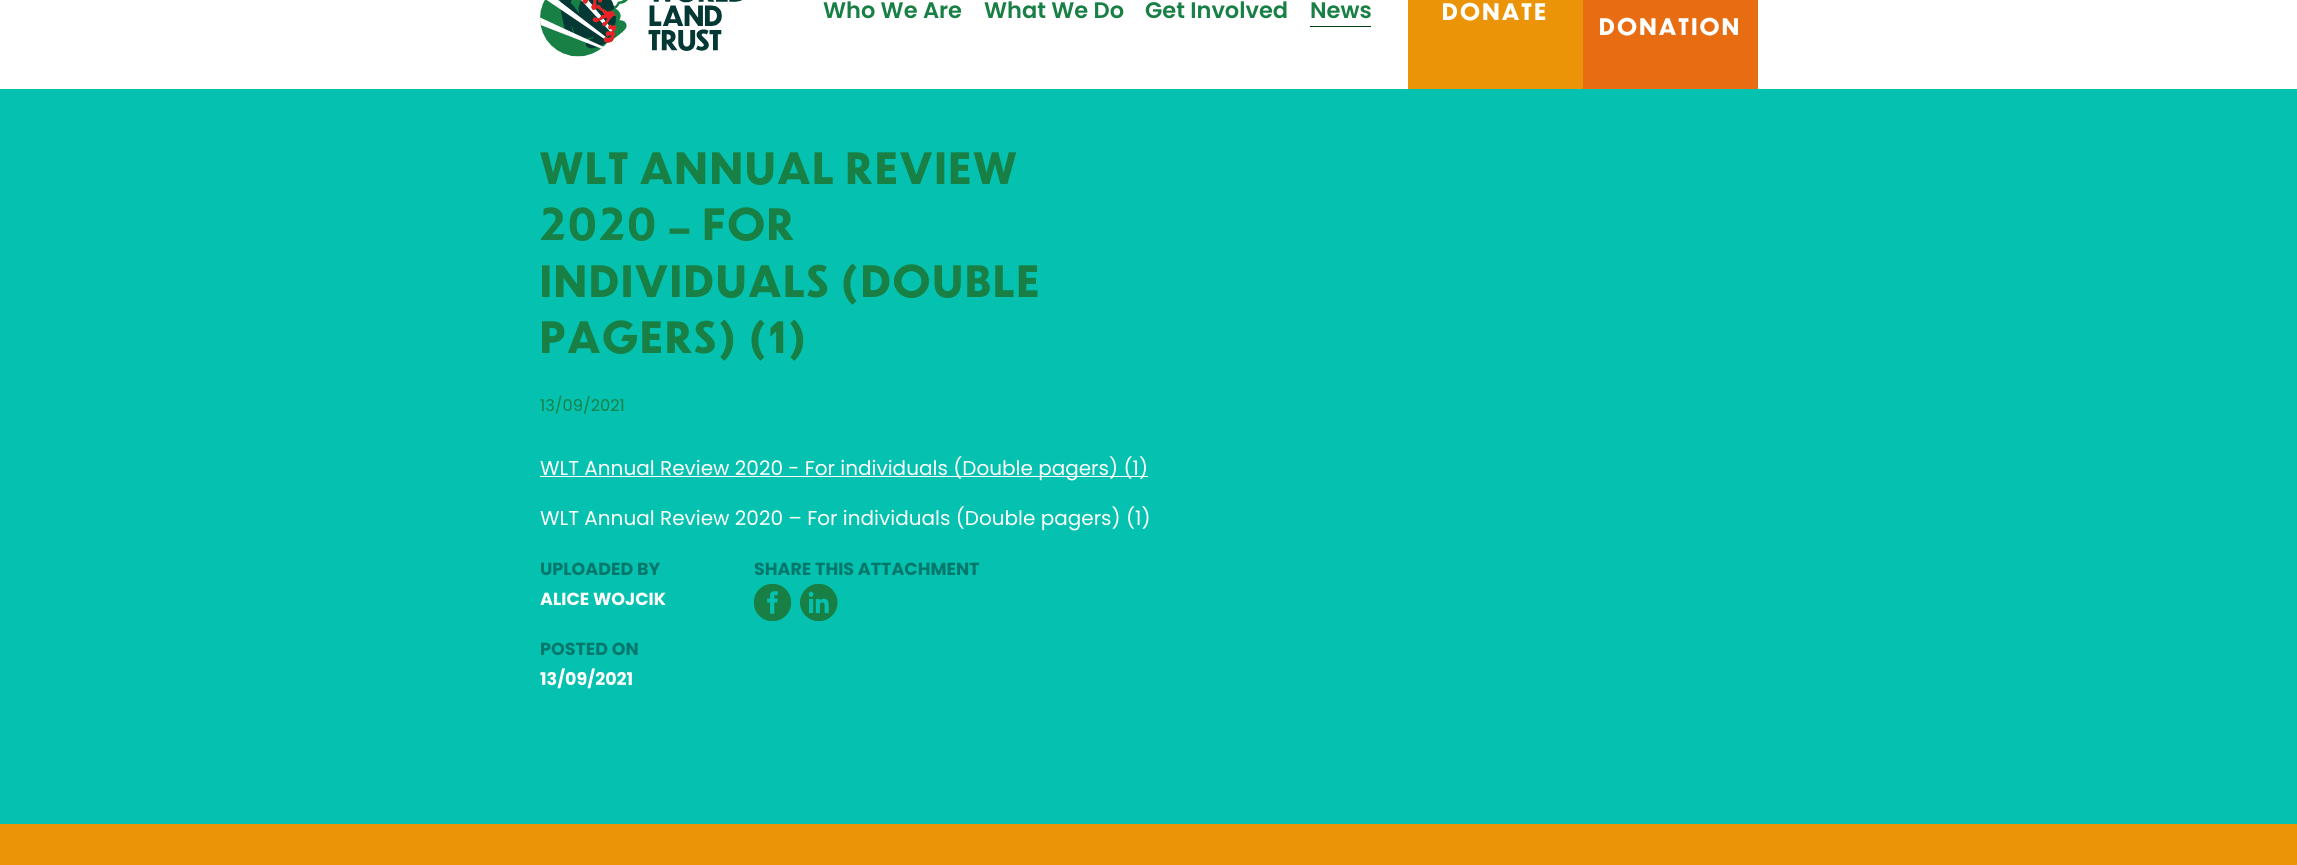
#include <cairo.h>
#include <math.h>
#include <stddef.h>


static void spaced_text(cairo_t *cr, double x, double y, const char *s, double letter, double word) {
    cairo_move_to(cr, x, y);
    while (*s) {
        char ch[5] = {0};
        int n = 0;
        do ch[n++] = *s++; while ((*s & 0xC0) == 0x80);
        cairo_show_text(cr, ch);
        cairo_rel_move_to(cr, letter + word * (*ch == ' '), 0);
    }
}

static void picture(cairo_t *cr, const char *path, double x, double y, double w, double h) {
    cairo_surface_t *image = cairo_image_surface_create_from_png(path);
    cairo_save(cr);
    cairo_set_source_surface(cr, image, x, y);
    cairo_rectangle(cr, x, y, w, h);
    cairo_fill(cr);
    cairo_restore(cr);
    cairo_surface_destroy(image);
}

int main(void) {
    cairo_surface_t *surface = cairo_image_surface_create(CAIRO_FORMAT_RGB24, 2297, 865);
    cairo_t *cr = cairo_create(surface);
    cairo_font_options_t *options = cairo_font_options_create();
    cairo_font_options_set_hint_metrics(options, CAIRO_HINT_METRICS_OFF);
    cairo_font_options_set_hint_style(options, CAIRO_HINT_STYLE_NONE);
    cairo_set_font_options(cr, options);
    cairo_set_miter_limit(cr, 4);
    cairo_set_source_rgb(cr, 1, 1, 1);
    cairo_paint(cr);
    picture(cr, "img1.png", 540, 0, 202, 57);
    cairo_select_font_face(cr, "Poppins SemiBold", CAIRO_FONT_SLANT_NORMAL, CAIRO_FONT_WEIGHT_NORMAL);
    cairo_set_font_size(cr, 22.5);
    cairo_set_source_rgb(cr, 0.094, 0.502, 0.271);
    cairo_move_to(cr, 823, 18);
    cairo_show_text(cr, "Who We Are");
    cairo_move_to(cr, 984, 18);
    cairo_show_text(cr, "What We Do");
    cairo_move_to(cr, 1145, 18);
    cairo_show_text(cr, "Get Involved");
    cairo_move_to(cr, 1310, 18);
    cairo_show_text(cr, "News");
    cairo_set_source_rgb(cr, 0, 0.243, 0.075);
    cairo_rectangle(cr, 1310, 26, 61, 1);
    cairo_fill(cr);
    cairo_set_source_rgb(cr, 0.925, 0.58, 0.035);
    cairo_rectangle(cr, 1408, 0, 175, 89);
    cairo_fill(cr);
    cairo_select_font_face(cr, "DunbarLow", CAIRO_FONT_SLANT_NORMAL, CAIRO_FONT_WEIGHT_BOLD);
    cairo_set_source_rgb(cr, 1, 1, 1);
    spaced_text(cr, 1442, 20, "DONATE", 2.5, 0);
    cairo_set_source_rgb(cr, 0.91, 0.427, 0.071);
    cairo_rectangle(cr, 1583, 0, 175, 89);
    cairo_fill(cr);
    cairo_set_source_rgb(cr, 1, 1, 1);
    spaced_text(cr, 1599, 35, "DONATION", 2.5, 0);
    cairo_set_source_rgb(cr, 0.016, 0.761, 0.686);
    cairo_rectangle(cr, 0, 89, 2297, 735);
    cairo_fill(cr);
    cairo_set_font_size(cr, 42.5);
    cairo_set_source_rgb(cr, 0.094, 0.502, 0.271);
    spaced_text(cr, 540, 184, "WLT ANNUAL REVIEW", 2.5, 0);
    spaced_text(cr, 540, 240, "2020 – FOR", 2.5, 0);
    spaced_text(cr, 540, 297, "INDIVIDUALS (DOUBLE", 2.5, 0);
    spaced_text(cr, 540, 353, "PAGERS) (1)", 2.5, 0);
    cairo_select_font_face(cr, "Poppins", CAIRO_FONT_SLANT_NORMAL, CAIRO_FONT_WEIGHT_NORMAL);
    cairo_set_font_size(cr, 16.25);
    cairo_move_to(cr, 540, 411);
    cairo_show_text(cr, "13/09/2021");
    cairo_set_source_rgb(cr, 1, 1, 1);
    cairo_rectangle(cr, 540, 476, 608, 1);
    cairo_fill(cr);
    cairo_set_font_size(cr, 20);
    cairo_move_to(cr, 540, 475);
    cairo_show_text(cr, "WLT Annual Review 2020 - For individuals (Double pagers) (1)");
    cairo_move_to(cr, 540, 525);
    cairo_show_text(cr, "WLT Annual Review 2020 – For individuals (Double pagers) (1)");
    cairo_select_font_face(cr, "Poppins", CAIRO_FONT_SLANT_NORMAL, CAIRO_FONT_WEIGHT_BOLD);
    cairo_set_font_size(cr, 17.5);
    cairo_set_source_rgb(cr, 0.008, 0.467, 0.42);
    cairo_move_to(cr, 540, 575);
    cairo_show_text(cr, "UPLOADED BY");
    cairo_set_source_rgb(cr, 1, 1, 1);
    cairo_move_to(cr, 540, 605);
    cairo_show_text(cr, "ALICE WOJCIK");
    cairo_set_source_rgb(cr, 0.008, 0.467, 0.42);
    cairo_move_to(cr, 754, 575);
    cairo_show_text(cr, "SHARE THIS ATTACHMENT");
    picture(cr, "img2.png", 754, 584, 37, 37);
    picture(cr, "img3.png", 800, 584, 38, 37);
    cairo_move_to(cr, 540, 655);
    cairo_show_text(cr, "POSTED ON");
    cairo_set_source_rgb(cr, 1, 1, 1);
    cairo_move_to(cr, 540, 685);
    cairo_show_text(cr, "13/09/2021");
    cairo_set_source_rgb(cr, 0.925, 0.58, 0.035);
    cairo_rectangle(cr, 0, 824, 2297, 41);
    cairo_fill(cr);
    cairo_surface_write_to_png(surface, "page.png");
    cairo_font_options_destroy(options);
    cairo_destroy(cr);
    cairo_surface_destroy(surface);
    return 0;
}
